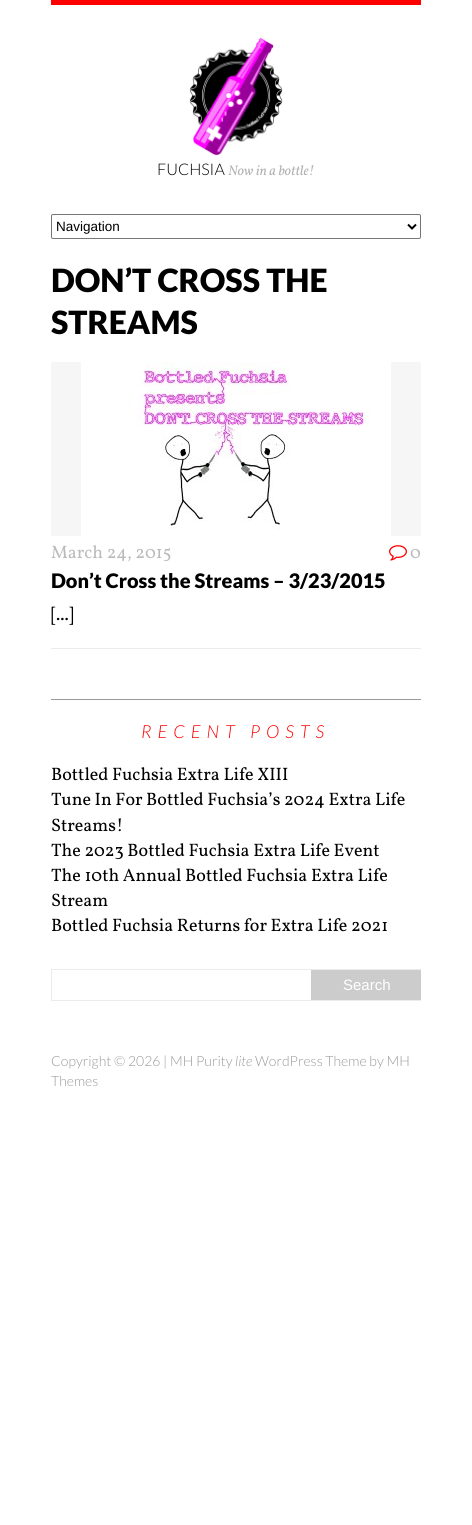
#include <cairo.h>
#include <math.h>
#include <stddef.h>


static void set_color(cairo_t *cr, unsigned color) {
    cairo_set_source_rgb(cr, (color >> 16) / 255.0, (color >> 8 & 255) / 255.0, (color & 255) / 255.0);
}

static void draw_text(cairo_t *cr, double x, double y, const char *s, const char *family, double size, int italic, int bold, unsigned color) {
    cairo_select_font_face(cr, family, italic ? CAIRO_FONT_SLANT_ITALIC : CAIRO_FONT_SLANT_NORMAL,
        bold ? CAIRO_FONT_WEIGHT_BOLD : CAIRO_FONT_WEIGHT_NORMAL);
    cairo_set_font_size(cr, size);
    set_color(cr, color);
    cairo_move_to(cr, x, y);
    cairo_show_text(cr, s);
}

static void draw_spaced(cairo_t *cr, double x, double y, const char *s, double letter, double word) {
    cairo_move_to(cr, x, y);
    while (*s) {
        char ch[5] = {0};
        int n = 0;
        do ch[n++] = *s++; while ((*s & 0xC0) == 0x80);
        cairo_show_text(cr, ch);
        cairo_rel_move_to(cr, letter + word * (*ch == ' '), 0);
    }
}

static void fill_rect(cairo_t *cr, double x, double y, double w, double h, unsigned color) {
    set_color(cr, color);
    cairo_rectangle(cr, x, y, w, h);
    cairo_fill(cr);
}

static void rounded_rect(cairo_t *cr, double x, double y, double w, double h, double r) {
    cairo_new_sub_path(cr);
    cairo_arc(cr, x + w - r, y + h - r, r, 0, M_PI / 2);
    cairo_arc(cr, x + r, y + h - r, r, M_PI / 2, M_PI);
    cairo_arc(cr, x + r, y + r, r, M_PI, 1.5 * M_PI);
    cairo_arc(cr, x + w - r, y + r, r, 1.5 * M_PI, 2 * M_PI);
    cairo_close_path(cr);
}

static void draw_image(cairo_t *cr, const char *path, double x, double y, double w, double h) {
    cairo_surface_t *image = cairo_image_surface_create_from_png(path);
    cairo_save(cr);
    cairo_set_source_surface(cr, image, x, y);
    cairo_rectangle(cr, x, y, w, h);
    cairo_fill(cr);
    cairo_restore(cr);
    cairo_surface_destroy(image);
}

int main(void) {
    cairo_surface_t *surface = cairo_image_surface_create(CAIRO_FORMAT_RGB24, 472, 1525);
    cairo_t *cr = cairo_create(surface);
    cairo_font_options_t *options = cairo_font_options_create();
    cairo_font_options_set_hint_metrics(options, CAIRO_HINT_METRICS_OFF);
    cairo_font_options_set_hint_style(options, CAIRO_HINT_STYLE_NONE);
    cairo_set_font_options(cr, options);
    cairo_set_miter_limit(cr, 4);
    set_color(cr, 0xFFFFFF);
    cairo_paint(cr);
    fill_rect(cr, 51, 0, 370, 5, 0xFF0000);
    draw_image(cr, "assets/img1.png", 189, 37, 94, 119);
    draw_text(cr, 157, 175, "FUCHSIA", "Lato Light", 16, 0, 0, 0x000000);
    draw_text(cr, 228, 175, "Now in a bottle!", "Vollkorn", 14, 1, 0, 0xB3B3B3);
    rounded_rect(cr, 51.5, 214.5, 369, 24, 1.5);
    set_color(cr, 0x767676);
    cairo_set_line_width(cr, 1);
    cairo_stroke(cr);
    cairo_new_path(cr);
    cairo_move_to(cr, 408, 224.5);
    cairo_line_to(cr, 412, 228.5);
    cairo_line_to(cr, 416, 224.5);
    set_color(cr, 0x000000);
    cairo_set_line_width(cr, 2);
    cairo_stroke(cr);
    draw_text(cr, 56, 231, "Navigation", "Liberation Sans", 13.5, 0, 0, 0x000000);
    draw_text(cr, 51, 292, "DON’T CROSS THE", "Lato Black", 32, 0, 0, 0x000000);
    draw_text(cr, 51, 334, "STREAMS", "Lato Black", 32, 0, 0, 0x000000);
    fill_rect(cr, 51, 648, 370, 1, 0xEBEBEB);
    fill_rect(cr, 51, 362, 370, 174, 0xF6F6F6);
    draw_image(cr, "assets/img2.png", 81, 362, 310, 174);
    draw_text(cr, 51, 558, "March 24, 2015", "Vollkorn", 18, 0, 0, 0xBBBBBB);
    draw_image(cr, "assets/img3.png", 389, 545, 18, 16);
    draw_text(cr, 410, 558, "0", "Vollkorn", 18, 0, 0, 0xBBBBBB);
    draw_text(cr, 51, 588, "Don’t Cross the Streams – 3/23/2015", "Lato Black", 20, 0, 0, 0x000000);
    draw_text(cr, 51, 620, "[...]", "Vollkorn", 18, 0, 0, 0x000000);
    fill_rect(cr, 51, 699, 370, 1, 0x999999);
    cairo_select_font_face(cr, "Lato Light", CAIRO_FONT_SLANT_ITALIC, CAIRO_FONT_WEIGHT_NORMAL);
    set_color(cr, 0xFF0000);
    draw_spaced(cr, 141, 738, "RECENT POSTS", 6, 0);
    draw_text(cr, 51, 780, "Bottled Fuchsia Extra Life XIII", "Vollkorn", 18, 0, 0, 0x000000);
    draw_text(cr, 51, 805, "Tune In For Bottled Fuchsia’s 2024 Extra Life", "Vollkorn", 18, 0, 0, 0x000000);
    draw_text(cr, 51, 831, "Streams!", "Vollkorn", 18, 0, 0, 0x000000);
    draw_text(cr, 51, 856, "The 2023 Bottled Fuchsia Extra Life Event", "Vollkorn", 18, 0, 0, 0x000000);
    draw_text(cr, 51, 881, "The 10th Annual Bottled Fuchsia Extra Life", "Vollkorn", 18, 0, 0, 0x000000);
    draw_text(cr, 51, 906, "Stream", "Vollkorn", 18, 0, 0, 0x000000);
    draw_text(cr, 51, 931, "Bottled Fuchsia Returns for Extra Life 2021", "Vollkorn", 18, 0, 0, 0x000000);
    cairo_save(cr);
    cairo_rectangle(cr, 51, 969, 370, 32);
    cairo_clip(cr);
    cairo_rectangle(cr, 51.5, 969.5, 371, 31);
    set_color(cr, 0xEBEBEB);
    cairo_set_line_width(cr, 1);
    cairo_stroke(cr);
    cairo_restore(cr);
    fill_rect(cr, 311, 970, 110, 30, 0xCCCCCC);
    draw_text(cr, 343, 990, "Search", "Liberation Sans", 15, 0, 0, 0xFFFFFF);
    draw_text(cr, 51, 1066, "Copyright © 2026 | MH Purity", "Lato Light", 14, 0, 0, 0x999999);
    draw_text(cr, 235, 1066, "lite", "Lato Light", 14, 1, 0, 0x999999);
    draw_text(cr, 255, 1066, "WordPress Theme by MH", "Lato Light", 14, 0, 0, 0x999999);
    draw_text(cr, 51, 1086, "Themes", "Lato Light", 14, 0, 0, 0x999999);
    cairo_surface_write_to_png(surface, "output.png");
    cairo_font_options_destroy(options);
    cairo_destroy(cr);
    cairo_surface_destroy(surface);
    return 0;
}
